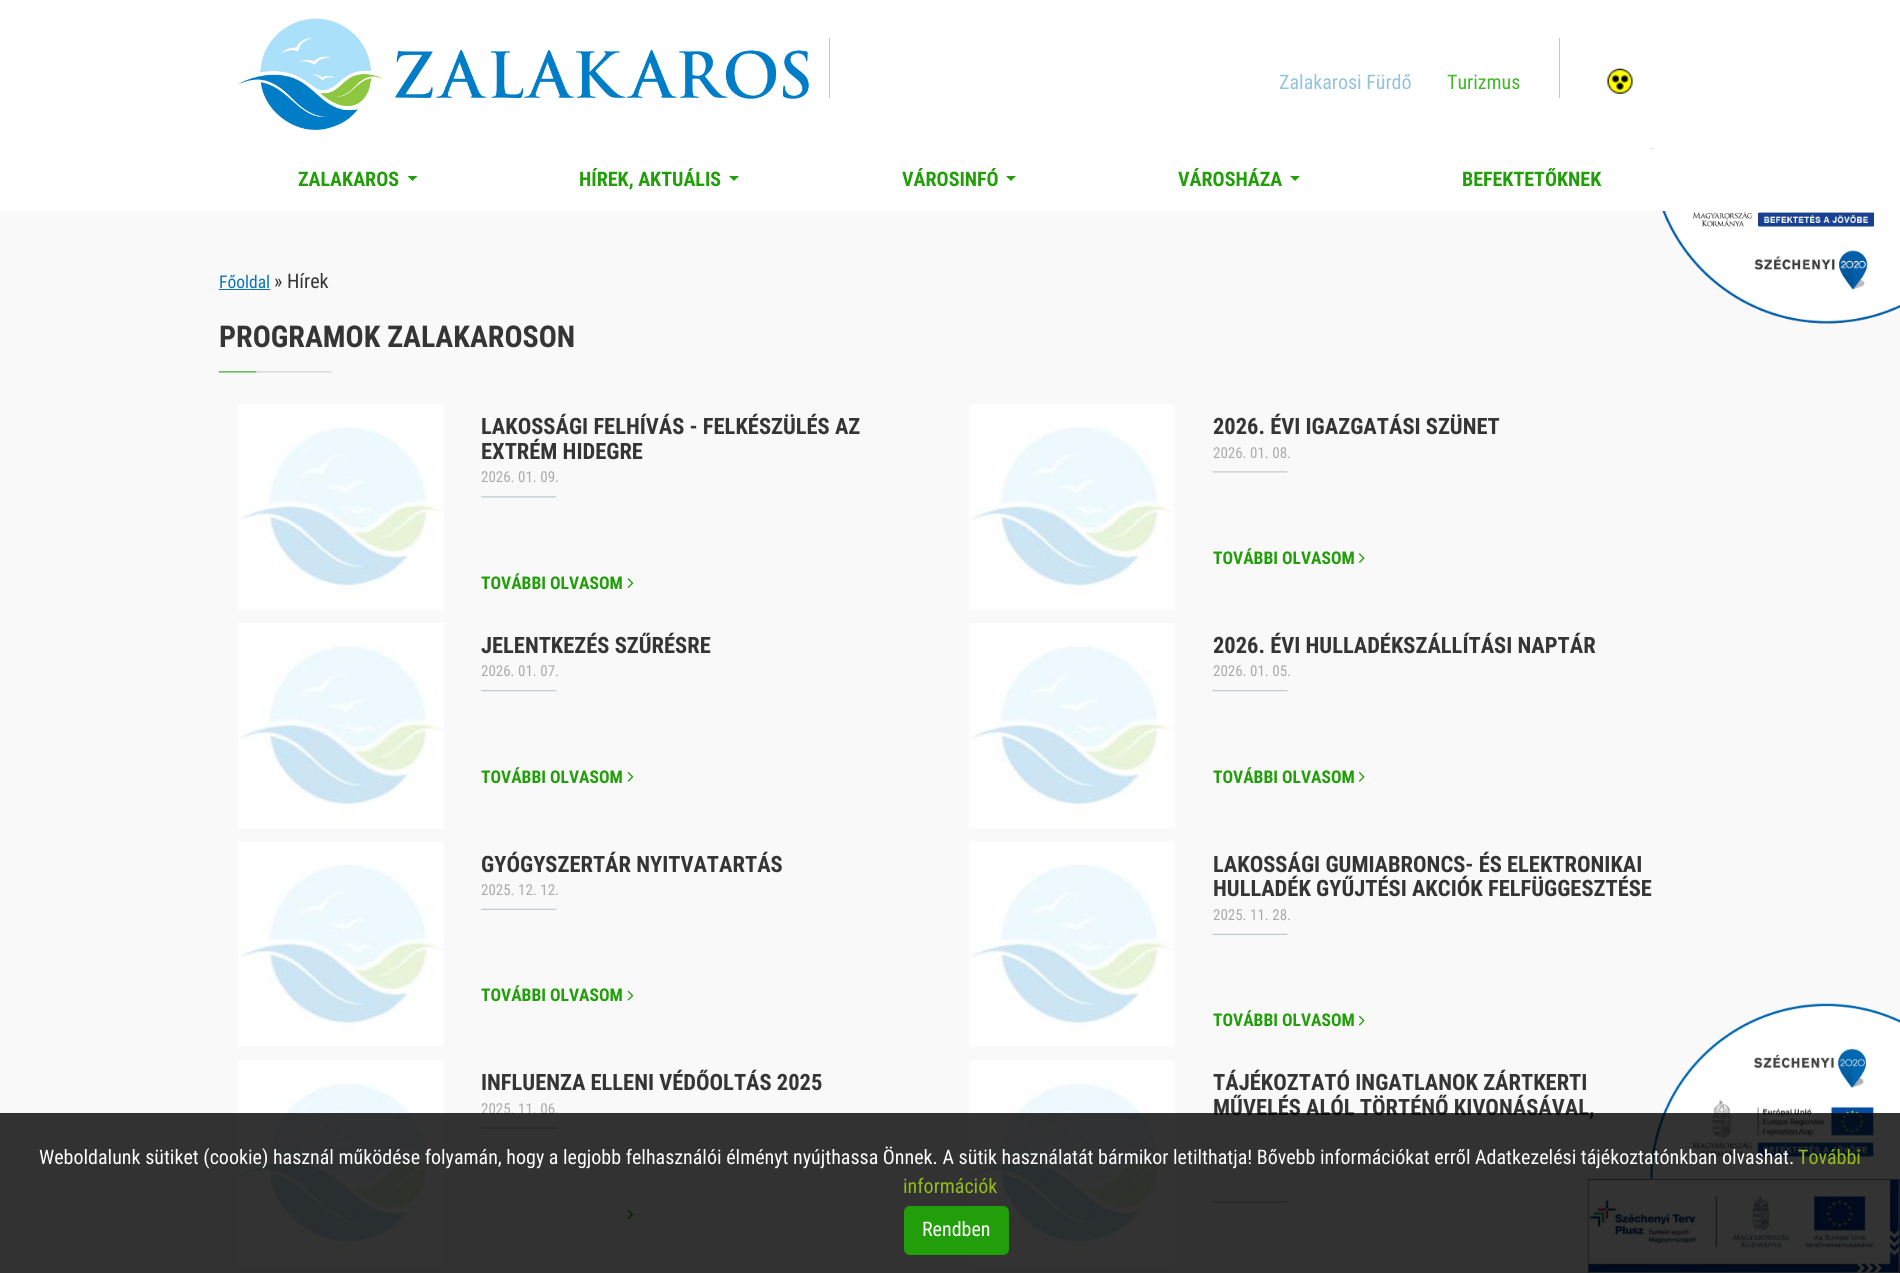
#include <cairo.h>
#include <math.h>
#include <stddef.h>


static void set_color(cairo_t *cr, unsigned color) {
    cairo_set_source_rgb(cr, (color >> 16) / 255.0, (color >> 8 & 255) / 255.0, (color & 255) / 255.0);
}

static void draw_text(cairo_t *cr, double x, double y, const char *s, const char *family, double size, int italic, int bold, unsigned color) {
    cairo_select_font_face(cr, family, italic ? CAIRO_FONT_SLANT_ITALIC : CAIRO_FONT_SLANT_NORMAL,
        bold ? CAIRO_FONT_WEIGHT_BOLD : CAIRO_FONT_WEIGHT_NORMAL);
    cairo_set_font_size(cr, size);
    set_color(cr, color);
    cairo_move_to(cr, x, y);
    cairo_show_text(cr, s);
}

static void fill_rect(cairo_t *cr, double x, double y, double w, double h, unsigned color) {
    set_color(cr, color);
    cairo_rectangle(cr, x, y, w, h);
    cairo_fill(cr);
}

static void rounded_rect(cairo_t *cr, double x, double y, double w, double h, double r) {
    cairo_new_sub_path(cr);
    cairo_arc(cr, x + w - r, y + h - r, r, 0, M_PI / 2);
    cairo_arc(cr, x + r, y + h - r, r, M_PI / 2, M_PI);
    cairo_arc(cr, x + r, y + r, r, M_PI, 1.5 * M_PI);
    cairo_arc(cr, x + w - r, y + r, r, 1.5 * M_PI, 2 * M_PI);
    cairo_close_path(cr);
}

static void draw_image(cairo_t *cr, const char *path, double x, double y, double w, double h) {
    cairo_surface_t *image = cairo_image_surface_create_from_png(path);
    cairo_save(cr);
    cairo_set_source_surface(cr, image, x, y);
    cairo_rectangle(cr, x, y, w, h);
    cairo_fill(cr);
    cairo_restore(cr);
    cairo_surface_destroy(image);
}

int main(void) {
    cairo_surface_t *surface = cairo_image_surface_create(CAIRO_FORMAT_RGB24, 1900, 1273);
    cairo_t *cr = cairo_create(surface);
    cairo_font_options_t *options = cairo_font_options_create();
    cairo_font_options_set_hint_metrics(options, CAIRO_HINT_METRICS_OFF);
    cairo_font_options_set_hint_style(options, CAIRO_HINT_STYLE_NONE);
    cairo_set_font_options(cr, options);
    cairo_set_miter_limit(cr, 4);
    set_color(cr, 0xF9F9F9);
    cairo_paint(cr);
    fill_rect(cr, 0, 0, 1900, 149, 0xFFFFFF);
    draw_image(cr, "assets/img1.png", 238, 18, 571, 112);
    fill_rect(cr, 1559, 38, 1, 60, 0xC1C9CE);
    fill_rect(cr, 829, 38, 1, 60, 0xC1C9CE);
    draw_text(cr, 1279, 89, "Zalakarosi Fürdő", "Roboto Condensed", 20, 0, 0, 0x93C3E1);
    draw_text(cr, 1447, 89, "Turizmus", "Roboto Condensed", 20, 0, 0, 0x42B62C);
    draw_image(cr, "assets/img2.png", 1607, 68, 26, 26);
    draw_image(cr, "assets/img3.png", 1650, 148, 250, 176);
    fill_rect(cr, 0, 149, 1875, 62, 0xFFFFFF);
    draw_text(cr, 298, 186, "ZALAKAROS", "Roboto Condensed", 20, 0, 1, 0x219E09);
    cairo_new_path(cr);
    cairo_move_to(cr, 407.5, 176);
    cairo_line_to(cr, 417.5, 176);
    cairo_line_to(cr, 412.5, 181);
    cairo_close_path(cr);
    cairo_fill(cr);
    draw_text(cr, 579, 186, "HÍREK, AKTUÁLIS", "Roboto Condensed", 20, 0, 1, 0x219E09);
    cairo_new_path(cr);
    cairo_move_to(cr, 729, 176);
    cairo_line_to(cr, 739, 176);
    cairo_line_to(cr, 734, 181);
    cairo_close_path(cr);
    cairo_fill(cr);
    draw_text(cr, 902, 186, "VÁROSINFÓ", "Roboto Condensed", 20, 0, 1, 0x219E09);
    cairo_new_path(cr);
    cairo_move_to(cr, 1006, 176);
    cairo_line_to(cr, 1016, 176);
    cairo_line_to(cr, 1011, 181);
    cairo_close_path(cr);
    cairo_fill(cr);
    draw_text(cr, 1178, 186, "VÁROSHÁZA", "Roboto Condensed", 20, 0, 1, 0x219E09);
    cairo_new_path(cr);
    cairo_move_to(cr, 1290, 176);
    cairo_line_to(cr, 1300, 176);
    cairo_line_to(cr, 1295, 181);
    cairo_close_path(cr);
    cairo_fill(cr);
    draw_text(cr, 1462, 186, "BEFEKTETŐKNEK", "Roboto Condensed", 20, 0, 1, 0x219E09);
    draw_text(cr, 219, 288, "Főoldal", "Roboto Condensed", 17.5, 0, 0, 0x0B75B3);
    fill_rect(cr, 219, 289, 51, 1, 0x0B75B3);
    draw_text(cr, 274, 288, "» Hírek", "Roboto Condensed", 20, 0, 0, 0x353535);
    draw_image(cr, "assets/img4.png", 218, 371, 114, 2);
    draw_text(cr, 219, 347, "PROGRAMOK ZALAKAROSON", "Roboto Condensed", 30, 0, 1, 0x353535);
    draw_image(cr, "assets/img5.png", 238, 404, 206, 206);
    draw_image(cr, "assets/img6.png", 481, 496, 76, 2);
    draw_text(cr, 481, 434, "LAKOSSÁGI FELHÍVÁS - FELKÉSZÜLÉS AZ", "Roboto Condensed", 22.5, 0, 1, 0x353535);
    draw_text(cr, 481, 459, "EXTRÉM HIDEGRE", "Roboto Condensed", 22.5, 0, 1, 0x353535);
    draw_text(cr, 481, 482, "2026. 01. 09.", "Roboto Condensed", 15, 0, 0, 0xAAAAAA);
    draw_text(cr, 481, 589, "TOVÁBBI OLVASOM", "Roboto Condensed", 17.5, 0, 1, 0x219E09);
    draw_image(cr, "assets/img7.png", 627, 578, 7, 10);
    draw_image(cr, "assets/img8.png", 969, 404, 206, 206);
    draw_image(cr, "assets/img9.png", 1212, 471, 76, 2);
    draw_text(cr, 1213, 434, "2026. ÉVI IGAZGATÁSI SZÜNET", "Roboto Condensed", 22.5, 0, 1, 0x353535);
    draw_text(cr, 1213, 458, "2026. 01. 08.", "Roboto Condensed", 15, 0, 0, 0xAAAAAA);
    draw_text(cr, 1213, 564, "TOVÁBBI OLVASOM", "Roboto Condensed", 17.5, 0, 1, 0x219E09);
    draw_image(cr, "assets/img10.png", 1358, 553, 7, 10);
    draw_image(cr, "assets/img11.png", 238, 623, 206, 206);
    draw_image(cr, "assets/img12.png", 481, 690, 76, 2);
    draw_text(cr, 481, 653, "JELENTKEZÉS SZŰRÉSRE", "Roboto Condensed", 22.5, 0, 1, 0x353535);
    draw_text(cr, 481, 676, "2026. 01. 07.", "Roboto Condensed", 15, 0, 0, 0xAAAAAA);
    draw_text(cr, 481, 783, "TOVÁBBI OLVASOM", "Roboto Condensed", 17.5, 0, 1, 0x219E09);
    draw_image(cr, "assets/img13.png", 627, 772, 7, 10);
    draw_image(cr, "assets/img14.png", 969, 623, 206, 206);
    draw_image(cr, "assets/img15.png", 1212, 690, 76, 2);
    draw_text(cr, 1213, 653, "2026. ÉVI HULLADÉKSZÁLLÍTÁSI NAPTÁR", "Roboto Condensed", 22.5, 0, 1, 0x353535);
    draw_text(cr, 1213, 676, "2026. 01. 05.", "Roboto Condensed", 15, 0, 0, 0xAAAAAA);
    draw_text(cr, 1213, 783, "TOVÁBBI OLVASOM", "Roboto Condensed", 17.5, 0, 1, 0x219E09);
    draw_image(cr, "assets/img16.png", 1358, 772, 7, 10);
    draw_image(cr, "assets/img17.png", 238, 841, 206, 206);
    draw_image(cr, "assets/img18.png", 481, 908, 76, 2);
    draw_text(cr, 481, 872, "GYÓGYSZERTÁR NYITVATARTÁS", "Roboto Condensed", 22.5, 0, 1, 0x353535);
    draw_text(cr, 481, 895, "2025. 12. 12.", "Roboto Condensed", 15, 0, 0, 0xAAAAAA);
    draw_text(cr, 481, 1001, "TOVÁBBI OLVASOM", "Roboto Condensed", 17.5, 0, 1, 0x219E09);
    draw_image(cr, "assets/img19.png", 627, 990, 7, 11);
    draw_image(cr, "assets/img20.png", 969, 841, 206, 206);
    draw_image(cr, "assets/img21.png", 1212, 933, 76, 2);
    draw_text(cr, 1213, 872, "LAKOSSÁGI GUMIABRONCS- ÉS ELEKTRONIKAI", "Roboto Condensed", 22.5, 0, 1, 0x353535);
    draw_text(cr, 1213, 896, "HULLADÉK GYŰJTÉSI AKCIÓK FELFÜGGESZTÉSE", "Roboto Condensed", 22.5, 0, 1, 0x353535);
    draw_text(cr, 1213, 920, "2025. 11. 28.", "Roboto Condensed", 15, 0, 0, 0xAAAAAA);
    draw_text(cr, 1213, 1026, "TOVÁBBI OLVASOM", "Roboto Condensed", 17.5, 0, 1, 0x219E09);
    draw_image(cr, "assets/img22.png", 1358, 1015, 7, 11);
    draw_image(cr, "assets/img23.png", 238, 1060, 206, 206);
    draw_image(cr, "assets/img24.png", 481, 1127, 76, 2);
    draw_text(cr, 481, 1090, "INFLUENZA ELLENI VÉDŐOLTÁS 2025", "Roboto Condensed", 22.5, 0, 1, 0x353535);
    draw_text(cr, 481, 1114, "2025. 11. 06.", "Roboto Condensed", 15, 0, 0, 0xAAAAAA);
    draw_image(cr, "assets/img25.png", 627, 1209, 7, 11);
    draw_image(cr, "assets/img26.png", 969, 1060, 206, 206);
    draw_image(cr, "assets/img9.png", 1212, 1201, 76, 2);
    draw_text(cr, 1213, 1090, "TÁJÉKOZTATÓ INGATLANOK ZÁRTKERTI", "Roboto Condensed", 22.5, 0, 1, 0x353535);
    draw_text(cr, 1213, 1115, "MŰVELÉS ALÓL TÖRTÉNŐ KIVONÁSÁVAL,", "Roboto Condensed", 22.5, 0, 1, 0x353535);
    draw_image(cr, "assets/img27.png", 1650, 1003, 250, 176);
    set_color(cr, 0xFFFFFF);
    cairo_rectangle(cr, 1588.5, 1179.5, 311, 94);
    cairo_fill_preserve(cr);
    set_color(cr, 0x808080);
    cairo_set_line_width(cr, 1);
    cairo_stroke(cr);
    draw_image(cr, "assets/img28.png", 1588, 1180, 311, 93);
    cairo_set_source_rgba(cr, 0, 0, 0, 0.8);
    cairo_rectangle(cr, 0, 1113, 1900, 160);
    cairo_fill(cr);
    draw_text(cr, 39, 1164, "Weboldalunk sütiket (cookie) használ működése folyamán, hogy a legjobb felhasználói élményt nyújthassa Önnek. A sütik használatát bármikor letilthatja! Bővebb információkat erről Adatkezelési tájékoztatónkban olvashat.", "Roboto Condensed", 20, 0, 0, 0xFFFFFF);
    draw_text(cr, 1798, 1164, "További", "Roboto Condensed", 20, 0, 0, 0x94BB1D);
    draw_text(cr, 903, 1193, "információk", "Roboto Condensed", 20, 0, 0, 0x94BB1D);
    set_color(cr, 0x219E09);
    rounded_rect(cr, 904, 1206, 105, 49, 6);
    cairo_fill(cr);
    draw_text(cr, 922, 1236, "Rendben", "Roboto Condensed", 20, 0, 0, 0xFFFFFF);
    cairo_surface_write_to_png(surface, "output.png");
    cairo_font_options_destroy(options);
    cairo_destroy(cr);
    cairo_surface_destroy(surface);
    return 0;
}
